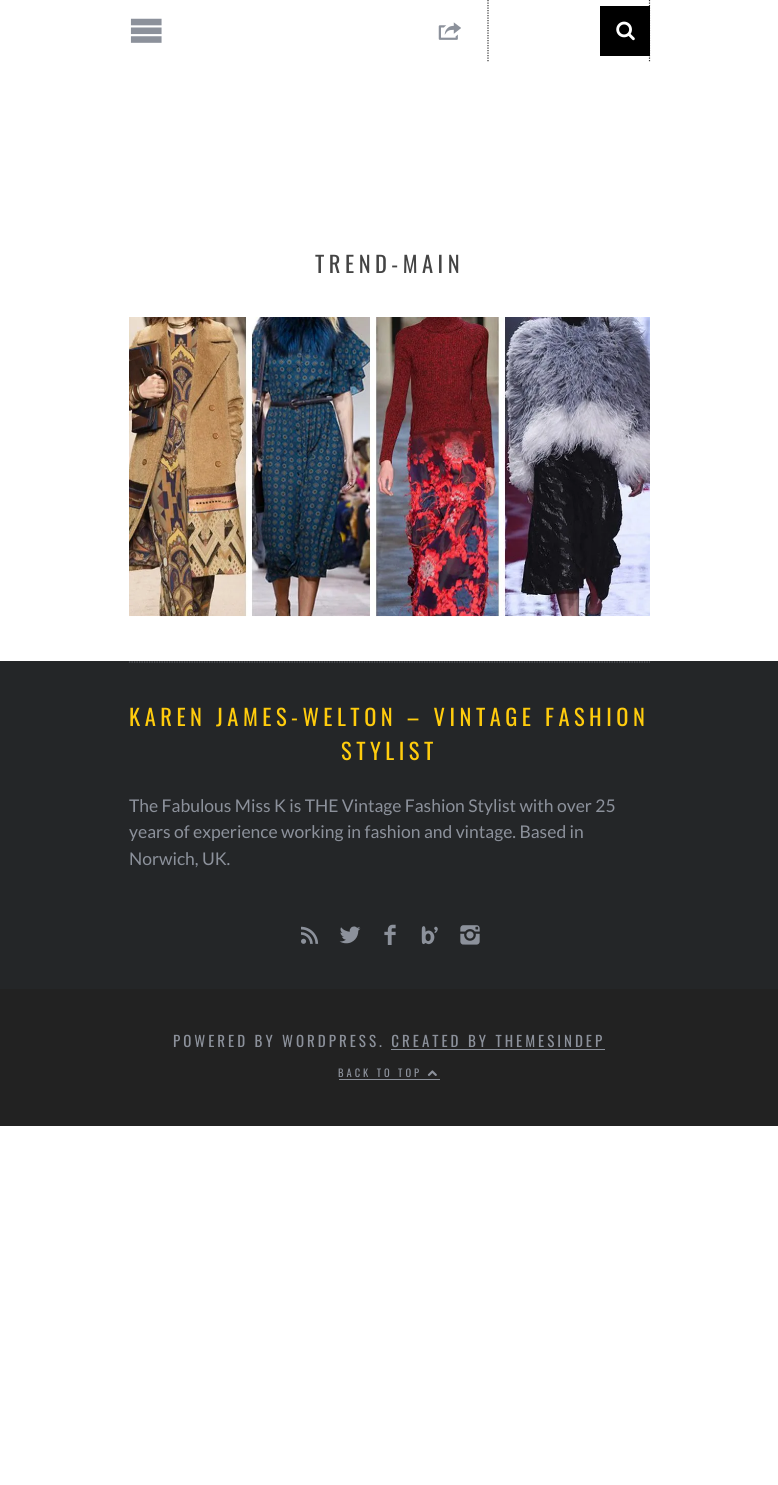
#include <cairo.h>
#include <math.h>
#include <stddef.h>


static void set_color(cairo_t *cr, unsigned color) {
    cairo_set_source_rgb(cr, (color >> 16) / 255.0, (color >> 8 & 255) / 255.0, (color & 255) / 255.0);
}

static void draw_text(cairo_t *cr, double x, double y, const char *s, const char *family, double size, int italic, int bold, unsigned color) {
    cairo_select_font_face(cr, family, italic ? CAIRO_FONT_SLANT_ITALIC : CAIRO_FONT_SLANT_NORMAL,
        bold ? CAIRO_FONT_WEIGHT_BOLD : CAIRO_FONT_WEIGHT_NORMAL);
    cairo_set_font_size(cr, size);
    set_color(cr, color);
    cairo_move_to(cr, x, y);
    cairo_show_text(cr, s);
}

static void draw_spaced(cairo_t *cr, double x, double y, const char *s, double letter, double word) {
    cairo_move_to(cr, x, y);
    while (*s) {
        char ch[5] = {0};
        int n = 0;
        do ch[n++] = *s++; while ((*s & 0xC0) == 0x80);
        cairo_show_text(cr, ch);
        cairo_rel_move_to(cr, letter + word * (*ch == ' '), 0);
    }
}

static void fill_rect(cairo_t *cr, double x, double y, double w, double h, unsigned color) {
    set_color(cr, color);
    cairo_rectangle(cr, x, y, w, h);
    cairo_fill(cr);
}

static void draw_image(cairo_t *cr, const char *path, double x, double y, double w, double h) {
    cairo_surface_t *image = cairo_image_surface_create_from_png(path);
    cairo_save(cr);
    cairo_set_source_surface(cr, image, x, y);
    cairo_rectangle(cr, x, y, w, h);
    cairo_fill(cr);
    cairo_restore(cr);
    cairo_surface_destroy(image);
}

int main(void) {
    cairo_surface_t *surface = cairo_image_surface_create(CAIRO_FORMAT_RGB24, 778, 1485);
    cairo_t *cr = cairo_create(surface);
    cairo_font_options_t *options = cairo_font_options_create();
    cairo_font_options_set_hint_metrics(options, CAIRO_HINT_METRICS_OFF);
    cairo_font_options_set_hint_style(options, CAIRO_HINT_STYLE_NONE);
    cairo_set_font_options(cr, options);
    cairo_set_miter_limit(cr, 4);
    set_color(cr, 0xFFFFFF);
    cairo_paint(cr);
    draw_image(cr, "assets/img1.png", 130, 18, 32, 25);
    draw_image(cr, "assets/img2.png", 438, 22, 23, 18);
    cairo_new_path(cr);
    cairo_move_to(cr, 649.5, 0);
    cairo_line_to(cr, 649.5, 62.5);
    set_color(cr, 0x333333);
    cairo_set_line_width(cr, 1.2);
    cairo_set_dash(cr, (double[]){1.25, 1.25}, 2, 0);
    cairo_stroke(cr);
    cairo_new_path(cr);
    cairo_move_to(cr, 488, 0);
    cairo_line_to(cr, 488, 62.5);
    cairo_stroke(cr);
    fill_rect(cr, 600, 6, 50, 50, 0x000000);
    draw_image(cr, "assets/img3.png", 616, 21, 19, 20);
    cairo_select_font_face(cr, "Oswald", CAIRO_FONT_SLANT_NORMAL, CAIRO_FONT_WEIGHT_NORMAL);
    cairo_set_font_size(cr, 22.5);
    set_color(cr, 0x444444);
    draw_spaced(cr, 315, 273, "TREND-MAIN", 4.5, 0);
    draw_image(cr, "assets/img4.png", 129, 317, 521, 300);
    fill_rect(cr, 0, 661, 778, 328, 0x242628);
    cairo_new_path(cr);
    cairo_move_to(cr, 129, 662);
    cairo_line_to(cr, 650, 662);
    set_color(cr, 0x585B61);
    cairo_stroke(cr);
    set_color(cr, 0xFFCC0D);
    draw_spaced(cr, 129, 726, "KAREN JAMES-WELTON – VINTAGE FASHION", 4.5, 0);
    draw_spaced(cr, 341, 760, "STYLIST", 4.5, 0);
    draw_text(cr, 129, 812, "The Fabulous Miss K is THE Vintage Fashion Stylist with over 25", "Lato", 17.5, 0, 0, 0x8C919B);
    draw_text(cr, 129, 838, "years of experience working in fashion and vintage. Based in", "Lato", 17.5, 0, 0, 0x8C919B);
    draw_text(cr, 129, 865, "Norwich, UK.", "Lato", 17.5, 0, 0, 0x8C919B);
    draw_image(cr, "assets/img5.png", 301, 926, 18, 18);
    draw_image(cr, "assets/img6.png", 339, 926, 22, 18);
    draw_image(cr, "assets/img7.png", 384, 924, 12, 21);
    draw_image(cr, "assets/img8.png", 421, 926, 17, 19);
    draw_image(cr, "assets/img9.png", 460, 925, 20, 20);
    fill_rect(cr, 0, 989, 778, 137, 0x222222);
    cairo_select_font_face(cr, "Oswald", CAIRO_FONT_SLANT_NORMAL, CAIRO_FONT_WEIGHT_NORMAL);
    cairo_set_font_size(cr, 15);
    set_color(cr, 0x8C919B);
    draw_spaced(cr, 173, 1047, "POWERED BY WORDPRESS. CREATED BY THEMESINDEP", 3, 0);
    fill_rect(cr, 391, 1049, 214, 1, 0x8C919B);
    cairo_set_font_size(cr, 10.5);
    draw_spaced(cr, 338, 1077, "BACK TO TOP", 3, 0);
    fill_rect(cr, 339, 1079, 101, 1, 0x8C919B);
    draw_image(cr, "assets/img10.png", 427, 1070, 10, 6);
    cairo_surface_write_to_png(surface, "output.png");
    cairo_font_options_destroy(options);
    cairo_destroy(cr);
    cairo_surface_destroy(surface);
    return 0;
}
